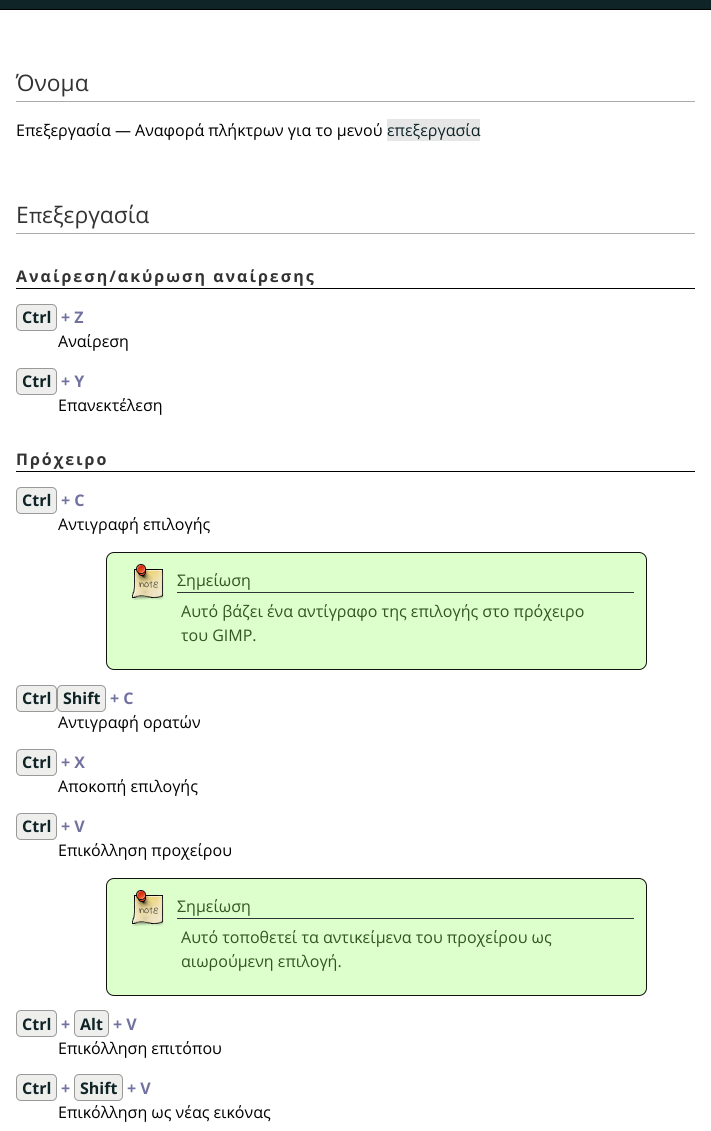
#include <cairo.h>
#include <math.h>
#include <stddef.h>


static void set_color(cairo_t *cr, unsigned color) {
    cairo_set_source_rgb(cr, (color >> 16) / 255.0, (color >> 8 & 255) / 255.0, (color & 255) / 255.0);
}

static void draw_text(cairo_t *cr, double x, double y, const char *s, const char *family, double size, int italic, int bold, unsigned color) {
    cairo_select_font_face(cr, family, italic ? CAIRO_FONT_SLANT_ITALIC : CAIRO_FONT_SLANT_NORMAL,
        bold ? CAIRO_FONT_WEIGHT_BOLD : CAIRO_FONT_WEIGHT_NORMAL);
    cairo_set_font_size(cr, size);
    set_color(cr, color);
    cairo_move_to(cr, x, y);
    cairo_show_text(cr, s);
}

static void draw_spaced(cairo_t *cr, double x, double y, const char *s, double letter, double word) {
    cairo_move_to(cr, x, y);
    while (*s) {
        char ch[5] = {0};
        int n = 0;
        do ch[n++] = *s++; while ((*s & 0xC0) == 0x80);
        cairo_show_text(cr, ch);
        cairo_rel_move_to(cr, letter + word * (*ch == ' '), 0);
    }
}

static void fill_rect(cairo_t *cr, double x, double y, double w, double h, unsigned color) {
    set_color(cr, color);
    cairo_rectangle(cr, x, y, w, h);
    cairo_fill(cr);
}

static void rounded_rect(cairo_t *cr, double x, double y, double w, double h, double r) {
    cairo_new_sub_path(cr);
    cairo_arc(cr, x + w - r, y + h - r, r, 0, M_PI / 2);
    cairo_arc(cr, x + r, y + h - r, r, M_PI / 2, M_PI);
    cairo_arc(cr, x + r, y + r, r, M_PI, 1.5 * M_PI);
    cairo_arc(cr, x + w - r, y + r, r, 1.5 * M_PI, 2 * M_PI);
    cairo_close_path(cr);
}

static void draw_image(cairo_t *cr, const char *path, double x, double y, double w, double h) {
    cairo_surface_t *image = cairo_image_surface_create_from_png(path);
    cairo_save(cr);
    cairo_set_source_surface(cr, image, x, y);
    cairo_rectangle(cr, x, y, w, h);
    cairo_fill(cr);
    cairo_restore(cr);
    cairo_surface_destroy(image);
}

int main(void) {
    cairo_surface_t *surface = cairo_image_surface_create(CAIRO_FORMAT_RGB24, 711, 1131);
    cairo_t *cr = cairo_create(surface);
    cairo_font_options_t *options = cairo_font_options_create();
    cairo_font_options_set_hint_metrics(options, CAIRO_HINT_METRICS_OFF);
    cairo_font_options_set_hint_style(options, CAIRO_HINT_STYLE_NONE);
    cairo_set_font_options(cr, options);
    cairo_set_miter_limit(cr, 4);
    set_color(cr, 0xFFFFFF);
    cairo_paint(cr);
    fill_rect(cr, 0, 0, 711, 9, 0x0E2426);
    fill_rect(cr, 0, 9, 711, 1, 0x000000);
    fill_rect(cr, 16, 101, 679, 1, 0xAAAAAA);
    draw_text(cr, 16, 91, "Όνομα", "Open Sans", 22.75, 0, 0, 0x333333);
    draw_text(cr, 16, 136, "Επεξεργασία — Αναφορά πλήκτρων για το μενού", "Open Sans", 16, 0, 0, 0x000000);
    fill_rect(cr, 387, 119, 93, 22, 0xE6E6E6);
    draw_text(cr, 387, 136, "επεξεργασία", "Open Sans", 16, 0, 0, 0x0E2426);
    fill_rect(cr, 16, 233, 679, 1, 0xAAAAAA);
    draw_text(cr, 16, 223, "Ε", "Open Sans", 22.75, 0, 0, 0x333333);
    draw_text(cr, 29, 223, "π", "Questrial", 22.75, 0, 0, 0x333333);
    draw_text(cr, 42, 223, "εξεργασία", "Open Sans", 22.75, 0, 0, 0x333333);
    fill_rect(cr, 16, 288, 679, 1, 0x000000);
    cairo_select_font_face(cr, "Open Sans", CAIRO_FONT_SLANT_NORMAL, CAIRO_FONT_WEIGHT_BOLD);
    cairo_set_font_size(cr, 16);
    set_color(cr, 0x333333);
    draw_spaced(cr, 16, 282, "Αναίρεση/ακύρωση αναίρεσης", 2, 0);
    set_color(cr, 0xEEEEEC);
    rounded_rect(cr, 16.5, 304.5, 40, 26, 4.5);
    cairo_fill_preserve(cr);
    set_color(cr, 0x999999);
    cairo_set_line_width(cr, 1);
    cairo_stroke(cr);
    draw_text(cr, 22, 323, "Ctrl", "Open Sans", 16, 0, 1, 0x0E2426);
    draw_text(cr, 61, 323, "+ Z", "Open Sans", 16, 0, 1, 0x7272A1);
    draw_text(cr, 58, 347, "Αναίρεση", "Open Sans", 16, 0, 0, 0x000000);
    set_color(cr, 0xEEEEEC);
    rounded_rect(cr, 16.5, 368.5, 40, 26, 4.5);
    cairo_fill_preserve(cr);
    set_color(cr, 0x999999);
    cairo_stroke(cr);
    draw_text(cr, 22, 387, "Ctrl", "Open Sans", 16, 0, 1, 0x0E2426);
    draw_text(cr, 61, 387, "+ Y", "Open Sans", 16, 0, 1, 0x7272A1);
    draw_text(cr, 58, 411, "Επανεκτέλεση", "Open Sans", 16, 0, 0, 0x000000);
    fill_rect(cr, 16, 471, 679, 1, 0x000000);
    cairo_select_font_face(cr, "Open Sans", CAIRO_FONT_SLANT_NORMAL, CAIRO_FONT_WEIGHT_BOLD);
    set_color(cr, 0x333333);
    draw_spaced(cr, 16, 465, "Πρόχειρο", 2, 0);
    set_color(cr, 0xEEEEEC);
    rounded_rect(cr, 16.5, 487.5, 40, 26, 4.5);
    cairo_fill_preserve(cr);
    set_color(cr, 0x999999);
    cairo_stroke(cr);
    draw_text(cr, 22, 506, "Ctrl", "Open Sans", 16, 0, 1, 0x0E2426);
    draw_text(cr, 61, 506, "+ C", "Open Sans", 16, 0, 1, 0x7272A1);
    draw_text(cr, 58, 530, "Αντιγραφή επιλογής", "Open Sans", 16, 0, 0, 0x000000);
    set_color(cr, 0xDDFFCC);
    rounded_rect(cr, 106.5, 552.5, 540, 117, 7.5);
    cairo_fill_preserve(cr);
    set_color(cr, 0x111111);
    cairo_stroke(cr);
    draw_image(cr, "assets/img1.png", 132, 564, 32, 36);
    fill_rect(cr, 177, 592, 457, 1, 0x2E3436);
    draw_text(cr, 177, 586, "Σημείωση", "Open Sans", 16, 0, 0, 0x335522);
    draw_text(cr, 181, 617, "Αυτό βάζει ένα αντίγραφο της επιλογής στο πρόχειρο", "Open Sans", 16, 0, 0, 0x335522);
    draw_text(cr, 181, 641, "του GIMP.", "Open Sans", 16, 0, 0, 0x335522);
    set_color(cr, 0xEEEEEC);
    rounded_rect(cr, 16.5, 685.5, 40, 26, 4.5);
    cairo_fill_preserve(cr);
    set_color(cr, 0x999999);
    cairo_stroke(cr);
    draw_text(cr, 22, 704, "Ctrl", "Open Sans", 16, 0, 1, 0x0E2426);
    set_color(cr, 0xEEEEEC);
    rounded_rect(cr, 57.5, 685.5, 48, 26, 4.5);
    cairo_fill_preserve(cr);
    set_color(cr, 0x999999);
    cairo_stroke(cr);
    draw_text(cr, 63, 704, "Shift", "Open Sans", 16, 0, 1, 0x0E2426);
    draw_text(cr, 110, 704, "+ C", "Open Sans", 16, 0, 1, 0x7272A1);
    draw_text(cr, 58, 728, "Αντιγραφή ορατών", "Open Sans", 16, 0, 0, 0x000000);
    set_color(cr, 0xEEEEEC);
    rounded_rect(cr, 16.5, 749.5, 40, 26, 4.5);
    cairo_fill_preserve(cr);
    set_color(cr, 0x999999);
    cairo_stroke(cr);
    draw_text(cr, 22, 768, "Ctrl", "Open Sans", 16, 0, 1, 0x0E2426);
    draw_text(cr, 61, 768, "+ X", "Open Sans", 16, 0, 1, 0x7272A1);
    draw_text(cr, 58, 792, "Αποκοπή επιλογής", "Open Sans", 16, 0, 0, 0x000000);
    set_color(cr, 0xEEEEEC);
    rounded_rect(cr, 16.5, 813.5, 40, 26, 4.5);
    cairo_fill_preserve(cr);
    set_color(cr, 0x999999);
    cairo_stroke(cr);
    draw_text(cr, 22, 832, "Ctrl", "Open Sans", 16, 0, 1, 0x0E2426);
    draw_text(cr, 61, 832, "+ V", "Open Sans", 16, 0, 1, 0x7272A1);
    draw_text(cr, 58, 856, "Επικόλληση προχείρου", "Open Sans", 16, 0, 0, 0x000000);
    set_color(cr, 0xDDFFCC);
    rounded_rect(cr, 106.5, 878.5, 540, 117, 7.5);
    cairo_fill_preserve(cr);
    set_color(cr, 0x111111);
    cairo_stroke(cr);
    draw_image(cr, "assets/img1.png", 132, 890, 32, 36);
    fill_rect(cr, 177, 918, 457, 1, 0x2E3436);
    draw_text(cr, 177, 912, "Σημείωση", "Open Sans", 16, 0, 0, 0x335522);
    draw_text(cr, 181, 943, "Αυτό τοποθετεί τα αντικείμενα του προχείρου ως", "Open Sans", 16, 0, 0, 0x335522);
    draw_text(cr, 181, 967, "αιωρούμενη επιλογή.", "Open Sans", 16, 0, 0, 0x335522);
    set_color(cr, 0xEEEEEC);
    rounded_rect(cr, 16.5, 1010.5, 40, 26, 4.5);
    cairo_fill_preserve(cr);
    set_color(cr, 0x999999);
    cairo_stroke(cr);
    draw_text(cr, 22, 1030, "Ctrl", "Open Sans", 16, 0, 1, 0x0E2426);
    draw_text(cr, 61, 1030, "+", "Open Sans", 16, 0, 1, 0x7272A1);
    set_color(cr, 0xEEEEEC);
    rounded_rect(cr, 74.5, 1010.5, 34, 26, 4.5);
    cairo_fill_preserve(cr);
    set_color(cr, 0x999999);
    cairo_stroke(cr);
    draw_text(cr, 80, 1030, "Alt", "Open Sans", 16, 0, 1, 0x0E2426);
    draw_text(cr, 113, 1030, "+ V", "Open Sans", 16, 0, 1, 0x7272A1);
    draw_text(cr, 58, 1054, "Επικόλληση επιτόπου", "Open Sans", 16, 0, 0, 0x000000);
    set_color(cr, 0xEEEEEC);
    rounded_rect(cr, 16.5, 1074.5, 40, 26, 4.5);
    cairo_fill_preserve(cr);
    set_color(cr, 0x999999);
    cairo_stroke(cr);
    draw_text(cr, 22, 1094, "Ctrl", "Open Sans", 16, 0, 1, 0x0E2426);
    draw_text(cr, 61, 1094, "+", "Open Sans", 16, 0, 1, 0x7272A1);
    set_color(cr, 0xEEEEEC);
    rounded_rect(cr, 74.5, 1074.5, 48, 26, 4.5);
    cairo_fill_preserve(cr);
    set_color(cr, 0x999999);
    cairo_stroke(cr);
    draw_text(cr, 80, 1094, "Shift", "Open Sans", 16, 0, 1, 0x0E2426);
    draw_text(cr, 127, 1094, "+ V", "Open Sans", 16, 0, 1, 0x7272A1);
    draw_text(cr, 58, 1118, "Επικόλληση ως νέας εικόνας", "Open Sans", 16, 0, 0, 0x000000);
    cairo_surface_write_to_png(surface, "output.png");
    cairo_font_options_destroy(options);
    cairo_destroy(cr);
    cairo_surface_destroy(surface);
    return 0;
}
